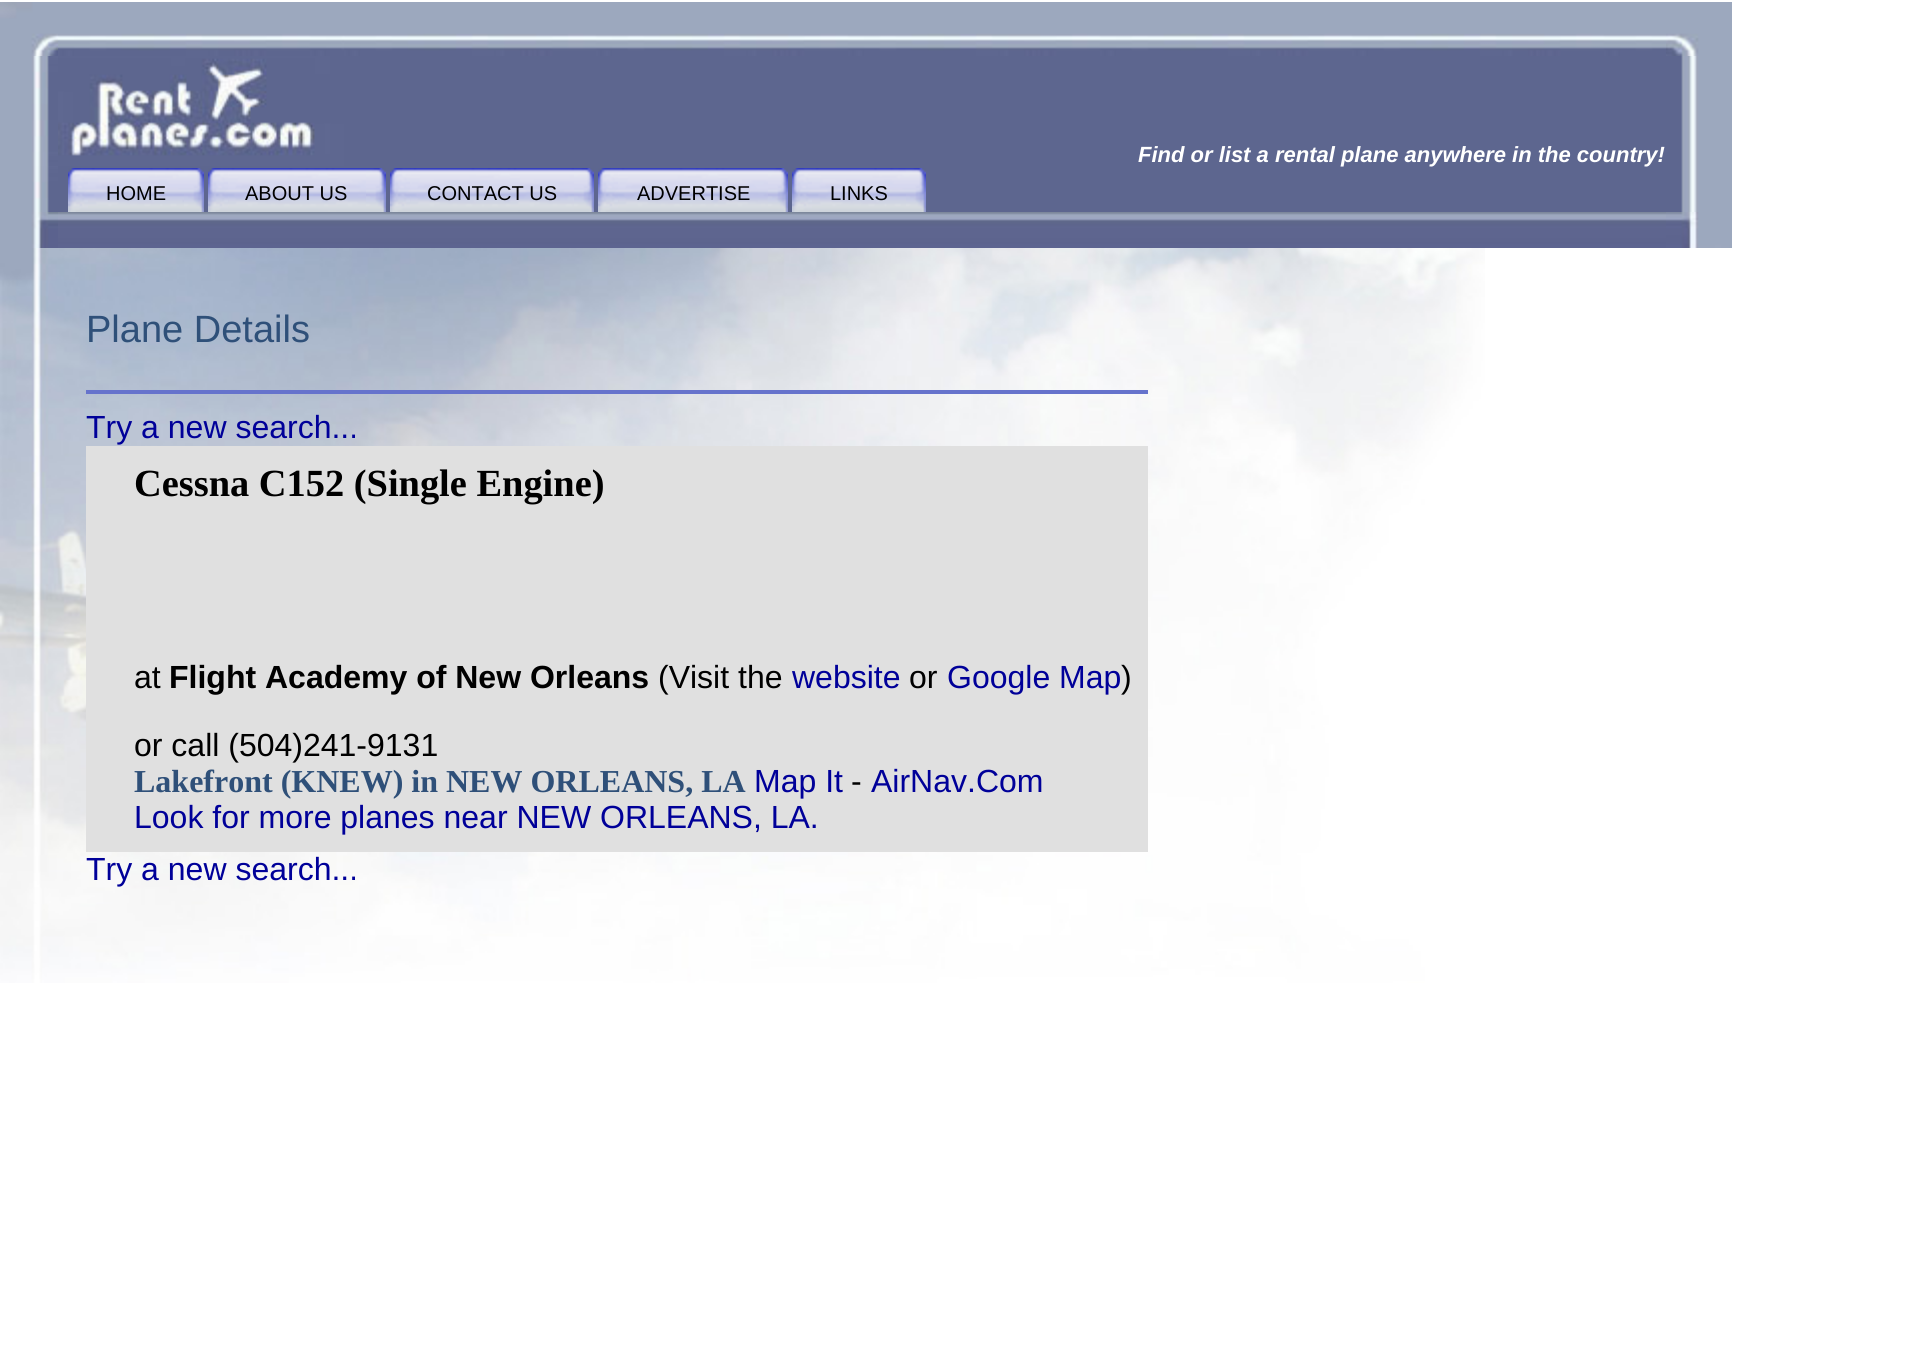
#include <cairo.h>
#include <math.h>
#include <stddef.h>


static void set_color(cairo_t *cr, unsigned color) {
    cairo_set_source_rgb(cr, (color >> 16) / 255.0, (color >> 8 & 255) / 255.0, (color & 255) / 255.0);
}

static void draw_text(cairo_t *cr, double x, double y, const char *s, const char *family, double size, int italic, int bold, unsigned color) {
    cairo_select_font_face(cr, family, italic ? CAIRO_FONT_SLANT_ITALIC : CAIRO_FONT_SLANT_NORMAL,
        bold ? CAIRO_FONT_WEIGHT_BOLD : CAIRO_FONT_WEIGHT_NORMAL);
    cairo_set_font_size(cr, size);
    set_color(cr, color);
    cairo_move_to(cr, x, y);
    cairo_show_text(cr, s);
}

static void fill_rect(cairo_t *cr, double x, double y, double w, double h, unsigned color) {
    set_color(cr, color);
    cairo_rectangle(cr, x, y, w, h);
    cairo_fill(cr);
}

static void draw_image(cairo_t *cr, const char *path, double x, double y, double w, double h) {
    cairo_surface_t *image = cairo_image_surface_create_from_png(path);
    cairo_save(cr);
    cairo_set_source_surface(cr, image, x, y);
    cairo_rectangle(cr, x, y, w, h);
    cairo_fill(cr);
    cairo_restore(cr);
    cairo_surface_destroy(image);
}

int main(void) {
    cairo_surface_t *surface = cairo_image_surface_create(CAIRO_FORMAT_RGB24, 1926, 1369);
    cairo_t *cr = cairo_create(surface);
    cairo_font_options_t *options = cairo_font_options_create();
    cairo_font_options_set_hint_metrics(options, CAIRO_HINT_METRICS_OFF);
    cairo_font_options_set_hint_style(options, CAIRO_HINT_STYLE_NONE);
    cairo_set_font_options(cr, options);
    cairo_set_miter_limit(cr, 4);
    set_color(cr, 0xFFFFFF);
    cairo_paint(cr);
    draw_image(cr, "assets/img1.png", 0, 2, 58, 54);
    draw_image(cr, "assets/img2.png", 58, 2, 286, 54);
    draw_image(cr, "assets/img3.png", 344, 2, 1322, 54);
    draw_image(cr, "assets/img4.png", 1666, 2, 66, 54);
    draw_image(cr, "assets/img5.png", 0, 56, 58, 110);
    draw_image(cr, "assets/img6.png", 58, 56, 286, 110);
    fill_rect(cr, 344, 56, 1322, 110, 0x5D668F);
    fill_rect(cr, 58, 166, 1608, 46, 0x5D668F);
    draw_text(cr, 1138, 162, "Find or list a rental plane anywhere in the country!", "Liberation Sans", 22, 1, 1, 0xFFFFFF);
    draw_image(cr, "assets/img7.png", 1666, 56, 66, 110);
    draw_image(cr, "assets/img8.png", 0, 166, 58, 46);
    draw_image(cr, "assets/img9.png", 68, 168, 20, 44);
    draw_image(cr, "assets/img10.png", 88, 168, 96, 44);
    draw_text(cr, 106, 200, "HOME", "Liberation Sans", 20, 0, 0, 0x000000);
    draw_image(cr, "assets/img11.png", 184, 168, 20, 44);
    draw_image(cr, "assets/img9.png", 208, 168, 20, 44);
    draw_image(cr, "assets/img12.png", 228, 168, 138, 44);
    draw_text(cr, 245, 200, "ABOUT US", "Liberation Sans", 20, 0, 0, 0x000000);
    draw_image(cr, "assets/img11.png", 366, 168, 20, 44);
    draw_image(cr, "assets/img9.png", 390, 168, 20, 44);
    draw_image(cr, "assets/img13.png", 410, 168, 164, 44);
    draw_text(cr, 427, 200, "CONTACT US", "Liberation Sans", 20, 0, 0, 0x000000);
    draw_image(cr, "assets/img11.png", 574, 168, 20, 44);
    draw_image(cr, "assets/img9.png", 598, 168, 20, 44);
    draw_image(cr, "assets/img14.png", 618, 168, 150, 44);
    draw_text(cr, 637, 200, "ADVERTISE", "Liberation Sans", 20, 0, 0, 0x000000);
    draw_image(cr, "assets/img11.png", 768, 168, 20, 44);
    draw_image(cr, "assets/img9.png", 792, 168, 20, 44);
    draw_image(cr, "assets/img15.png", 812, 168, 94, 44);
    draw_text(cr, 830, 200, "LINKS", "Liberation Sans", 20, 0, 0, 0x000000);
    draw_image(cr, "assets/img11.png", 906, 168, 20, 44);
    draw_image(cr, "assets/img16.png", 1666, 166, 66, 46);
    draw_image(cr, "assets/img17.png", 0, 212, 58, 36);
    draw_image(cr, "assets/img18.png", 58, 212, 1608, 36);
    draw_image(cr, "assets/img19.png", 1666, 212, 66, 36);
    draw_image(cr, "assets/img20.png", 0, 248, 1485, 735);
    draw_text(cr, 86, 342, "Plane Details", "Liberation Sans", 38, 0, 0, 0x2F5079);
    fill_rect(cr, 86, 390, 1062, 4, 0x6673CC);
    draw_text(cr, 86, 438, "Try a new search...", "Liberation Sans", 32, 0, 0, 0x000099);
    fill_rect(cr, 86, 446, 1062, 406, 0xE0E0E0);
    draw_text(cr, 134, 496, "Cessna C152 (Single Engine)", "Liberation Serif", 38.4, 0, 1, 0x000000);
    draw_text(cr, 134, 688, "at", "Liberation Sans", 32, 0, 0, 0x000000);
    draw_text(cr, 169, 688, "Flight Academy of New Orleans", "Liberation Sans", 32, 0, 1, 0x000000);
    draw_text(cr, 658, 688, "(Visit the", "Liberation Sans", 32, 0, 0, 0x000000);
    draw_text(cr, 792, 688, "website", "Liberation Sans", 32, 0, 0, 0x000099);
    draw_text(cr, 909, 688, "or", "Liberation Sans", 32, 0, 0, 0x000000);
    draw_text(cr, 947, 688, "Google Map", "Liberation Sans", 32, 0, 0, 0x000099);
    draw_text(cr, 1121, 688, ")", "Liberation Sans", 32, 0, 0, 0x000000);
    draw_text(cr, 134, 756, "or call (504)241-9131", "Liberation Sans", 32, 0, 0, 0x000000);
    draw_text(cr, 134, 792, "Lakefront (KNEW) in NEW ORLEANS, LA", "Liberation Serif", 32, 0, 1, 0x2F5079);
    draw_text(cr, 754, 792, "Map It", "Liberation Sans", 32, 0, 0, 0x000099);
    draw_text(cr, 851, 792, "-", "Liberation Sans", 32, 0, 0, 0x000000);
    draw_text(cr, 871, 792, "AirNav.Com", "Liberation Sans", 32, 0, 0, 0x000099);
    draw_text(cr, 134, 828, "Look for more planes near NEW ORLEANS, LA.", "Liberation Sans", 32, 0, 0, 0x000099);
    draw_text(cr, 86, 880, "Try a new search...", "Liberation Sans", 32, 0, 0, 0x000099);
    cairo_surface_write_to_png(surface, "output.png");
    cairo_font_options_destroy(options);
    cairo_destroy(cr);
    cairo_surface_destroy(surface);
    return 0;
}
